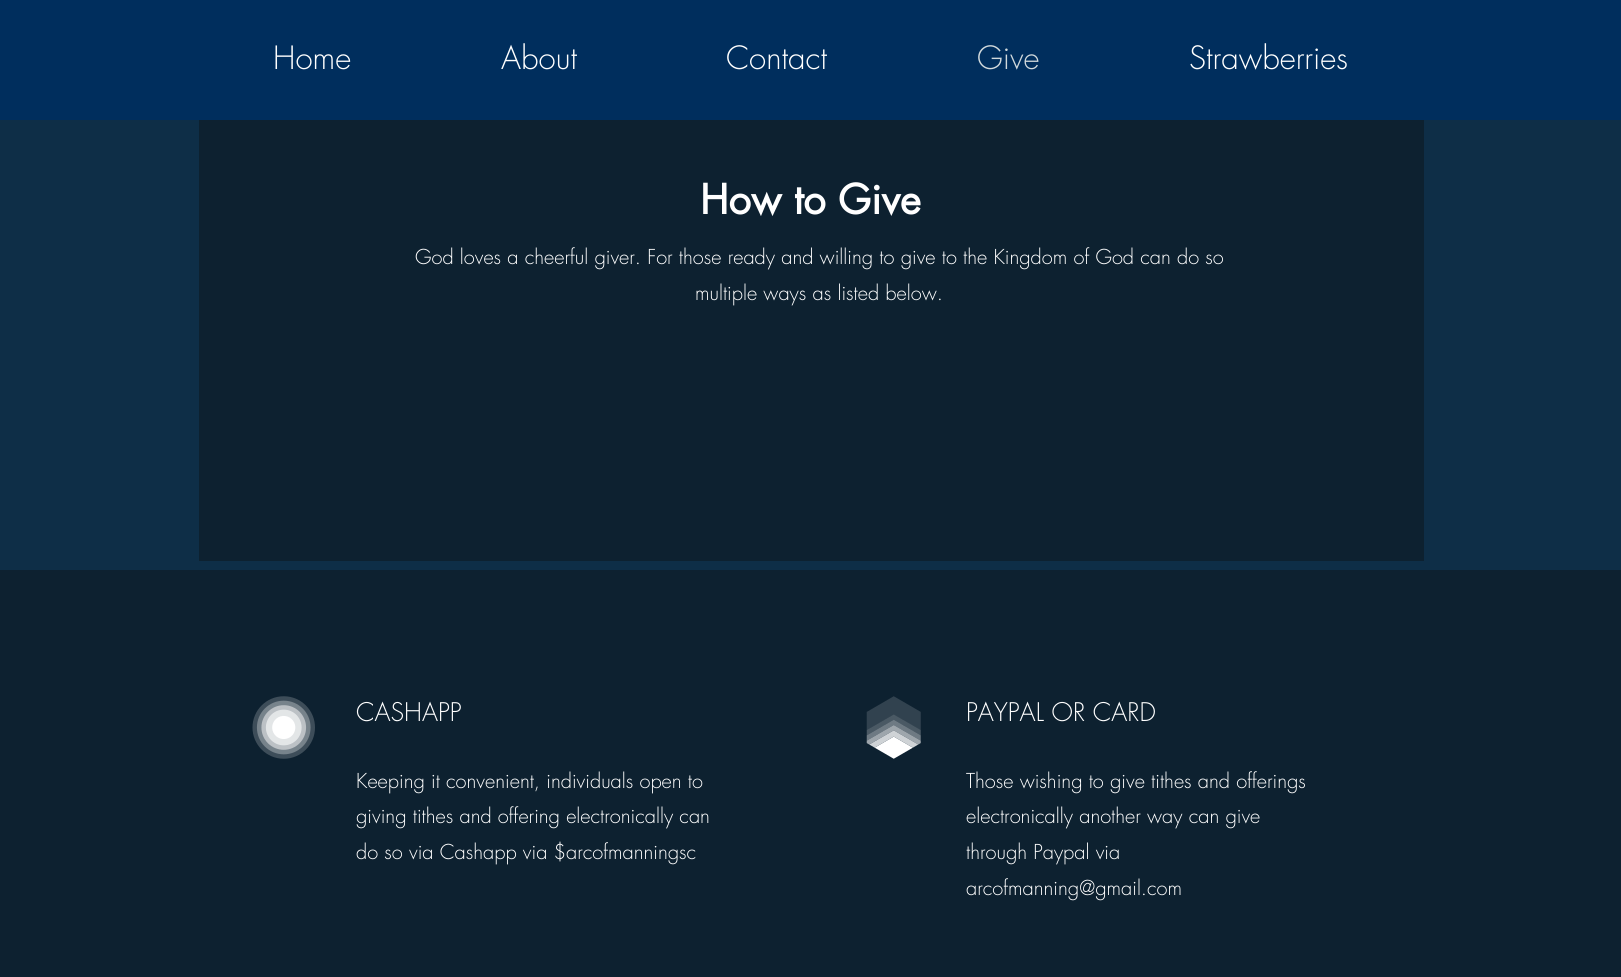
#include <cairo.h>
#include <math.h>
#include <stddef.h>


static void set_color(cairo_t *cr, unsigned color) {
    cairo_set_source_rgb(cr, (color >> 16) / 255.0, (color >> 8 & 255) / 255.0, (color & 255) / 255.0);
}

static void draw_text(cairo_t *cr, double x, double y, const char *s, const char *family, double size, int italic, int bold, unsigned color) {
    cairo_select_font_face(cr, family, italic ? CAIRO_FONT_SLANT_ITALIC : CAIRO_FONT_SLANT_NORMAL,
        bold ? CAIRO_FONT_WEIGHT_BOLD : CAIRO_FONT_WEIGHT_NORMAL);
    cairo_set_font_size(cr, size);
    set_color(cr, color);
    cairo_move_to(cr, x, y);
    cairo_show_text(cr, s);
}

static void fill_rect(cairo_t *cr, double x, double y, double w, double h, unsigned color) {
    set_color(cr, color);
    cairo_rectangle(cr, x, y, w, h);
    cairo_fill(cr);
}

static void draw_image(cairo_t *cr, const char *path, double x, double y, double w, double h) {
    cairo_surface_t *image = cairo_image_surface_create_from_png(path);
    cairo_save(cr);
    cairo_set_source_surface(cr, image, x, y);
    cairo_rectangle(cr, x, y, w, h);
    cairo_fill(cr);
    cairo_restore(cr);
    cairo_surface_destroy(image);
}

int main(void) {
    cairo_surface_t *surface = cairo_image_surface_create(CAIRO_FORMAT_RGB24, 1621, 977);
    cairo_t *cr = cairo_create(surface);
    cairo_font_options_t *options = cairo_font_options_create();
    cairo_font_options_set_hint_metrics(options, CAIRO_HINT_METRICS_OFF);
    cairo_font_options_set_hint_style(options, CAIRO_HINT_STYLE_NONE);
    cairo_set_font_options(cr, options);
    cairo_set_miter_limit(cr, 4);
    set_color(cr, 0x0D2130);
    cairo_paint(cr);
    fill_rect(cr, 0, 0, 1621, 120, 0x002E5D);
    draw_text(cr, 273, 69, "Home", "futura Light", 31.25, 0, 0, 0xFFFFFF);
    draw_text(cr, 501, 69, "About", "futura Light", 31.25, 0, 0, 0xFFFFFF);
    draw_text(cr, 726, 69, "Contact", "futura Light", 31.25, 0, 0, 0xFFFFFF);
    draw_text(cr, 977, 69, "Give", "futura Light", 31.25, 0, 0, 0xD1D9DC);
    draw_text(cr, 1189, 69, "Strawberries", "futura Light", 31.25, 0, 0, 0xFFFFFF);
    fill_rect(cr, 0, 120, 1621, 450, 0x0E2E47);
    fill_rect(cr, 199, 120, 1225, 441, 0x0D2130);
    draw_text(cr, 700, 214, "How to Give", "futura", 40, 0, 1, 0xFFFFFF);
    draw_text(cr, 415, 264, "God loves a cheerful giver. For those ready and willing to give to the Kingdom of God can do so", "futura Light", 20, 0, 0, 0xFFFFFF);
    draw_text(cr, 695, 300, "multiple ways as listed below.", "futura Light", 20, 0, 0, 0xFFFFFF);
    draw_image(cr, "assets/img1.png", 252, 696, 63, 63);
    draw_text(cr, 356, 721, "CASHAPP", "futura Light", 25, 0, 0, 0xFFFFFF);
    draw_text(cr, 356, 788, "Keeping it convenient, individuals open to", "futura Light", 20, 0, 0, 0xFFFFFF);
    draw_text(cr, 356, 823, "giving tithes and offering electronically can", "futura Light", 20, 0, 0, 0xFFFFFF);
    draw_text(cr, 356, 859, "do so via Cashapp via $arcofmanningsc", "futura Light", 20, 0, 0, 0xFFFFFF);
    draw_image(cr, "assets/img2.png", 866, 696, 55, 63);
    draw_text(cr, 966, 721, "PAYPAL OR CARD", "futura Light", 25, 0, 0, 0xFFFFFF);
    draw_text(cr, 966, 788, "Those wishing to give tithes and offerings", "futura Light", 20, 0, 0, 0xFFFFFF);
    draw_text(cr, 966, 823, "electronically another way can give", "futura Light", 20, 0, 0, 0xFFFFFF);
    draw_text(cr, 966, 859, "through Paypal via", "futura Light", 20, 0, 0, 0xFFFFFF);
    draw_text(cr, 966, 895, "arcofmanning@gmail.com", "futura Light", 20, 0, 0, 0xFFFFFF);
    cairo_surface_write_to_png(surface, "output.png");
    cairo_font_options_destroy(options);
    cairo_destroy(cr);
    cairo_surface_destroy(surface);
    return 0;
}
